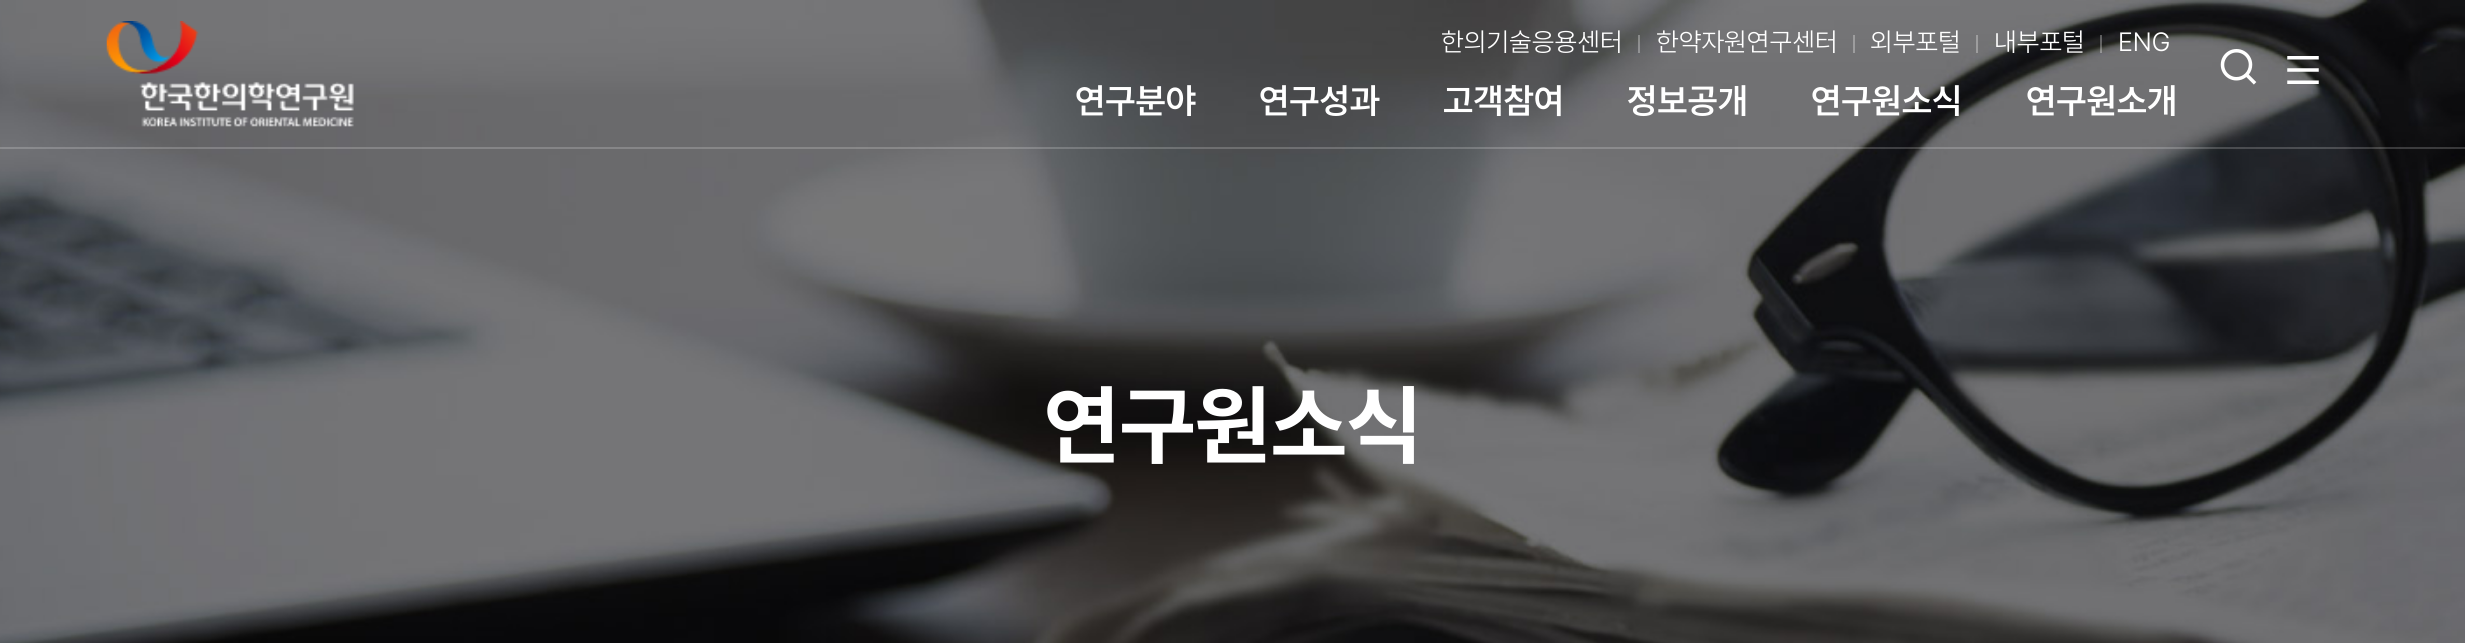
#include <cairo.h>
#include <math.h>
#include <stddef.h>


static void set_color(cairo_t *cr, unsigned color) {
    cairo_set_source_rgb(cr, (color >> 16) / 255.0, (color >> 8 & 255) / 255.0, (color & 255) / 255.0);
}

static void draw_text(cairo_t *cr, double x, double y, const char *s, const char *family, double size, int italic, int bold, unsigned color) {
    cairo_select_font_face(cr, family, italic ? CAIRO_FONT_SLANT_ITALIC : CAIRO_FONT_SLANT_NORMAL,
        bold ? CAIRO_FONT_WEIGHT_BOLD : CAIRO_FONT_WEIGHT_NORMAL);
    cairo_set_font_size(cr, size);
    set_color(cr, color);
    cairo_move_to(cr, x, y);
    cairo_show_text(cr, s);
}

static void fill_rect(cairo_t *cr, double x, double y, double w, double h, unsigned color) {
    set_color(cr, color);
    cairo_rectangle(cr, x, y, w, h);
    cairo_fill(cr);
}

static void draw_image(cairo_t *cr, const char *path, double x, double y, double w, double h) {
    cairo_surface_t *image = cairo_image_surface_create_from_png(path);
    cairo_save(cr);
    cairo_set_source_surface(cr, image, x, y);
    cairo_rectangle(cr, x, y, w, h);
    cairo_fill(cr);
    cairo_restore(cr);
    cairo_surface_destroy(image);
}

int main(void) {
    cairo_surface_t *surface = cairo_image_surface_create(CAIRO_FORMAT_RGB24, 2465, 643);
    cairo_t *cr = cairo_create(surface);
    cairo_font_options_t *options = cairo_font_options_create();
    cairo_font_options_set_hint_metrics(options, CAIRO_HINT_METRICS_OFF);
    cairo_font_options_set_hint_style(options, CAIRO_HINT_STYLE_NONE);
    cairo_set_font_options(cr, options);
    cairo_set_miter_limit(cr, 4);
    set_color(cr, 0xFFFFFF);
    cairo_paint(cr);
    draw_image(cr, "assets/img4.png", 0, 0, 2465, 643);
    cairo_set_source_rgba(cr, 1, 1, 1, 0.19);
    cairo_rectangle(cr, 0, 147, 2465, 2);
    cairo_fill(cr);
    draw_image(cr, "assets/img1.png", 106, 21, 248, 106);
    draw_text(cr, 1441, 51, "한의기술응용센터", "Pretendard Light", 26.25, 0, 0, 0xFFFFFF);
    cairo_set_source_rgba(cr, 1, 1, 1, 0.3);
    cairo_rectangle(cr, 1638, 35, 2, 18);
    cairo_fill(cr);
    draw_text(cr, 1656, 51, "한약자원연구센터", "Pretendard Light", 26.25, 0, 0, 0xFFFFFF);
    fill_rect(cr, 1853, 35, 2, 18, 0x9D9D9E);
    draw_text(cr, 1870, 51, "외부포털", "Pretendard Light", 26.25, 0, 0, 0xFFFFFF);
    fill_rect(cr, 1976, 35, 2, 18, 0x9D9D9E);
    draw_text(cr, 1994, 51, "내부포털", "Pretendard Light", 26.25, 0, 0, 0xFFFFFF);
    cairo_set_source_rgba(cr, 1, 1, 1, 0.3);
    cairo_rectangle(cr, 2100, 35, 2, 18);
    cairo_fill(cr);
    draw_text(cr, 2118, 51, "ENG", "Pretendard Light", 26.25, 0, 0, 0xFFFFFF);
    draw_image(cr, "assets/img2.png", 2220, 49, 37, 36);
    draw_image(cr, "assets/img3.png", 2287, 56, 32, 28);
    draw_text(cr, 1075, 113, "연구분야", "Pretendard SemiBold", 35, 0, 0, 0xFFFFFF);
    draw_text(cr, 1259, 113, "연구성과", "Pretendard SemiBold", 35, 0, 0, 0xFFFFFF);
    draw_text(cr, 1443, 113, "고객참여", "Pretendard SemiBold", 35, 0, 0, 0xFFFFFF);
    draw_text(cr, 1627, 113, "정보공개", "Pretendard SemiBold", 35, 0, 0, 0xFFFFFF);
    draw_text(cr, 1811, 113, "연구원소식", "Pretendard SemiBold", 35, 0, 0, 0xFFFFFF);
    draw_text(cr, 2026, 113, "연구원소개", "Pretendard SemiBold", 35, 0, 0, 0xFFFFFF);
    draw_text(cr, 1044, 456, "연구원소식", "Pretendard", 87.5, 0, 1, 0xFFFFFF);
    cairo_surface_write_to_png(surface, "output.png");
    cairo_font_options_destroy(options);
    cairo_destroy(cr);
    cairo_surface_destroy(surface);
    return 0;
}
